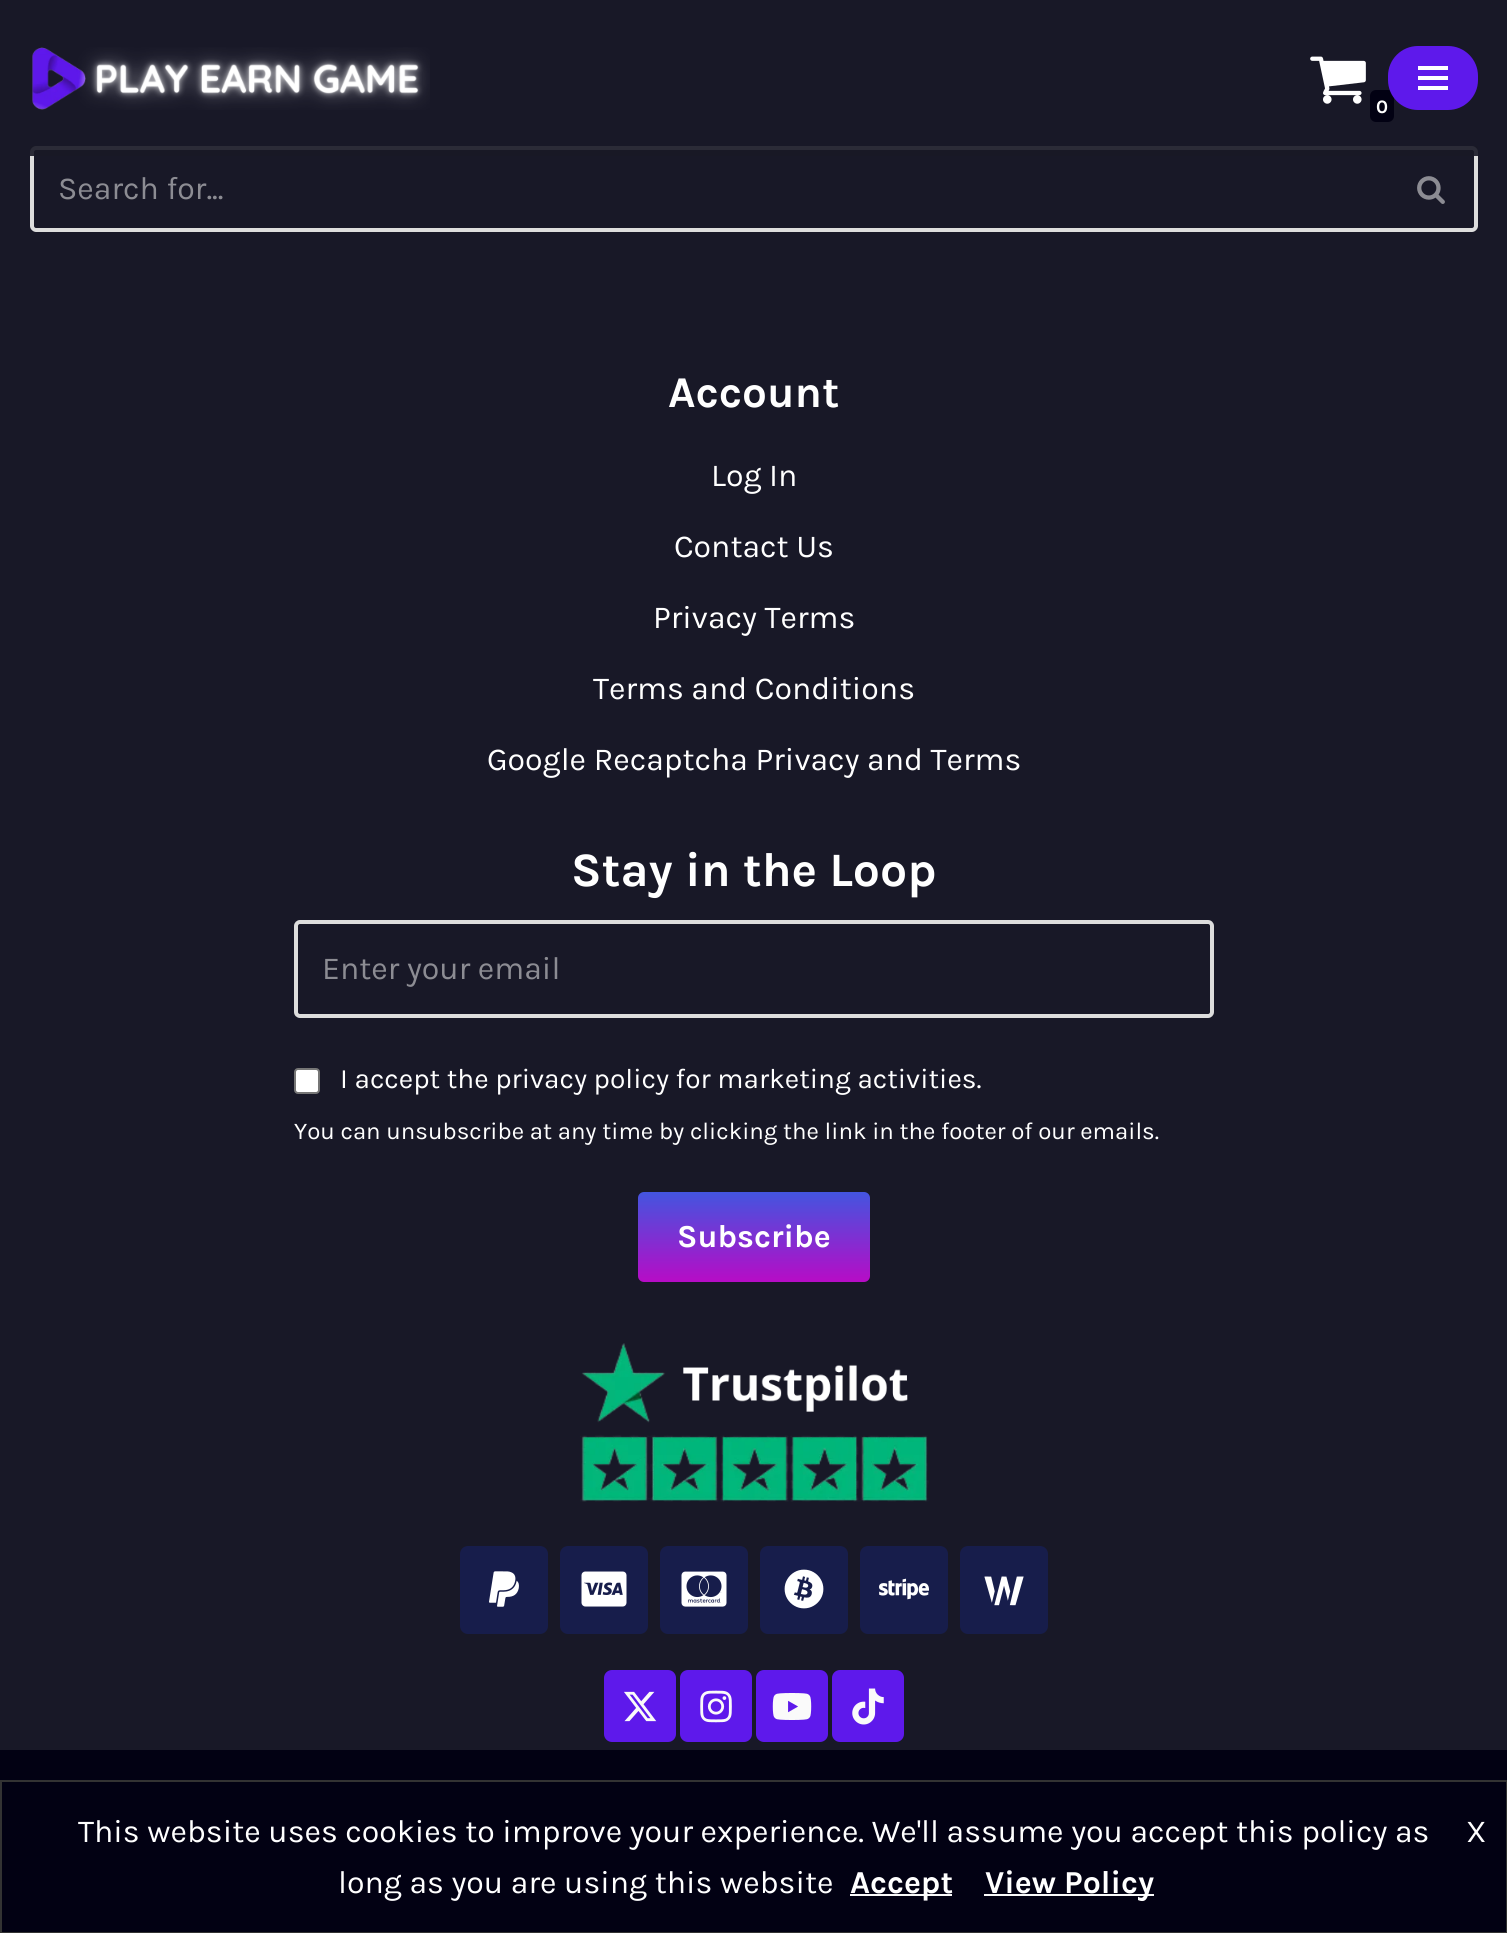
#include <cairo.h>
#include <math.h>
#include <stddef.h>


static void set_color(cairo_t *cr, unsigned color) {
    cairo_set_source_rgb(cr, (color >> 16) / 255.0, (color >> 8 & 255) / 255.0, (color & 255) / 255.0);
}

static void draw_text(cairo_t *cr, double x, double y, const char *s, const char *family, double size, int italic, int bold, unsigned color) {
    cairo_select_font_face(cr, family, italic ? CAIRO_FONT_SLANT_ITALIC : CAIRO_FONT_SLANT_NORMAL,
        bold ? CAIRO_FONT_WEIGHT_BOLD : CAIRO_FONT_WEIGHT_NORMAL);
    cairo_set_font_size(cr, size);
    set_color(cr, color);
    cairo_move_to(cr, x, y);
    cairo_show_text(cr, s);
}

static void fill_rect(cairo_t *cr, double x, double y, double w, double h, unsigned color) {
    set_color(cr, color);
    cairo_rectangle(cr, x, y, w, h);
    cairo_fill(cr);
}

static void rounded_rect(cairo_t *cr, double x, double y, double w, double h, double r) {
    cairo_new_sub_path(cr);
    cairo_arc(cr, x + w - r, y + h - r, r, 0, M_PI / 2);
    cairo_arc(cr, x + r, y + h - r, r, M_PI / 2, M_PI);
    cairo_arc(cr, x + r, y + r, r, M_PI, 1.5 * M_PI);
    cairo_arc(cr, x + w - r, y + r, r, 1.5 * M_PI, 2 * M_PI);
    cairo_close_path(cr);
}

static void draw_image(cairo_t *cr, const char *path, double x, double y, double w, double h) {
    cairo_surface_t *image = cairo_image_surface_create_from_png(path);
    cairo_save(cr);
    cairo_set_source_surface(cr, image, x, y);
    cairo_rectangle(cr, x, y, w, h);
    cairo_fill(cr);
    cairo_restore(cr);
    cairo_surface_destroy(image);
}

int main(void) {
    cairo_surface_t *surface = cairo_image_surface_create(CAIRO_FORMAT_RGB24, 1507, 1933);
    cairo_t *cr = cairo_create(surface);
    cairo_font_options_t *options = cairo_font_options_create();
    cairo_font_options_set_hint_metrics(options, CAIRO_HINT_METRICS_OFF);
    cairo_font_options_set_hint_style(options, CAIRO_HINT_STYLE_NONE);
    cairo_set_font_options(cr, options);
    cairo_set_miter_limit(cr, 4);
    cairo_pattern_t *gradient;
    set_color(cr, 0x181827);
    cairo_paint(cr);
    set_color(cr, 0xDDDDDD);
    cairo_set_fill_rule(cr, CAIRO_FILL_RULE_EVEN_ODD);
    cairo_new_path(cr);
    cairo_move_to(cr, 36, 146);
    cairo_line_to(cr, 1388, 146);
    cairo_line_to(cr, 1388, 232);
    cairo_line_to(cr, 36, 232);
    cairo_curve_to(cr, 33, 232, 30, 229, 30, 226);
    cairo_line_to(cr, 30, 152);
    cairo_curve_to(cr, 30, 149, 33, 146, 36, 146);
    cairo_close_path(cr);
    cairo_move_to(cr, 36, 150);
    cairo_line_to(cr, 1388, 150);
    cairo_line_to(cr, 1388, 228);
    cairo_line_to(cr, 36, 228);
    cairo_curve_to(cr, 35, 228, 34, 227, 34, 226);
    cairo_line_to(cr, 34, 152);
    cairo_curve_to(cr, 34, 151, 35, 150, 36, 150);
    cairo_close_path(cr);
    cairo_fill(cr);
    cairo_new_path(cr);
    cairo_move_to(cr, 1388, 146);
    cairo_line_to(cr, 1472, 146);
    cairo_curve_to(cr, 1475, 146, 1478, 149, 1478, 152);
    cairo_line_to(cr, 1478, 226);
    cairo_curve_to(cr, 1478, 229, 1475, 232, 1472, 232);
    cairo_line_to(cr, 1388, 232);
    cairo_close_path(cr);
    cairo_move_to(cr, 1388, 150);
    cairo_line_to(cr, 1472, 150);
    cairo_curve_to(cr, 1473, 150, 1474, 151, 1474, 152);
    cairo_line_to(cr, 1474, 226);
    cairo_curve_to(cr, 1474, 227, 1473, 228, 1472, 228);
    cairo_line_to(cr, 1388, 228);
    cairo_close_path(cr);
    cairo_fill(cr);
    cairo_set_source_rgba(cr, 0.094, 0.094, 0.149, 0.68);
    cairo_rectangle(cr, 30, 146, 1448, 10);
    cairo_fill(cr);
    cairo_rectangle(cr, 30, 146, 1448, 10);
    cairo_fill(cr);
    draw_image(cr, "assets/img1.png", 32, 47, 398, 63);
    draw_image(cr, "assets/img2.png", 1310, 56, 56, 48);
    set_color(cr, 0x020113);
    rounded_rect(cr, 1370, 90, 24, 32, 6);
    cairo_fill(cr);
    draw_text(cr, 1376, 113, "0", "Karla", 19, 0, 1, 0xFFFFFF);
    set_color(cr, 0x5E19EB);
    rounded_rect(cr, 1388, 46, 90, 64, 30);
    cairo_fill(cr);
    fill_rect(cr, 1418, 66, 30, 4, 0xFFFFFF);
    fill_rect(cr, 1418, 76, 30, 4, 0xFFFFFF);
    fill_rect(cr, 1418, 86, 30, 4, 0xFFFFFF);
    draw_text(cr, 58, 199, "Search for...", "Karla", 32, 0, 0, 0x8C8C93);
    draw_image(cr, "assets/img3.png", 1417, 176, 28, 28);
    draw_text(cr, 668, 407, "Account", "Karla", 44, 0, 1, 0xFFFFFF);
    draw_text(cr, 711, 486, "Log In", "Karla", 32, 0, 0, 0xFFFFFF);
    draw_text(cr, 674, 557, "Contact Us", "Karla", 32, 0, 0, 0xFFFFFF);
    draw_text(cr, 653, 628, "Privacy Terms", "Karla", 32, 0, 0, 0xFFFFFF);
    draw_text(cr, 593, 699, "Terms and Conditions", "Karla", 32, 0, 0, 0xFFFFFF);
    draw_text(cr, 487, 770, "Google Recaptcha Privacy and Terms", "Karla", 32, 0, 0, 0xFFFFFF);
    draw_text(cr, 571, 886, "Stay in the Loop", "Karla", 48, 0, 1, 0xFFFFFF);
    rounded_rect(cr, 296, 922, 916, 94, 4);
    set_color(cr, 0xDDDDDD);
    cairo_set_line_width(cr, 4);
    cairo_stroke(cr);
    draw_text(cr, 322, 979, "Enter your email", "Karla", 32, 0, 0, 0x8C8C93);
    set_color(cr, 0xFFFFFF);
    rounded_rect(cr, 295, 1069, 24, 24, 3);
    cairo_fill_preserve(cr);
    set_color(cr, 0x767676);
    cairo_set_line_width(cr, 2);
    cairo_stroke(cr);
    draw_text(cr, 340, 1088, "I accept the privacy policy for marketing activities.", "Karla", 28, 0, 0, 0xFFFFFF);
    draw_text(cr, 294, 1139, "You can unsubscribe at any time by clicking the link in the footer of our emails.", "Karla", 24, 0, 0, 0xFFFFFF);
    gradient = cairo_pattern_create_linear(754, 1192, 754, 1282);
    cairo_pattern_add_color_stop_rgba(gradient, 0, 0.263, 0.333, 0.875, 1);
    cairo_pattern_add_color_stop_rgba(gradient, 1, 0.718, 0.047, 0.776, 1);
    cairo_set_source(cr, gradient);
    cairo_pattern_destroy(gradient);
    rounded_rect(cr, 638, 1192, 232, 90, 6);
    cairo_fill(cr);
    draw_text(cr, 677, 1247, "Subscribe", "Karla", 32, 0, 1, 0xFFFFFF);
    draw_image(cr, "assets/img4.png", 580, 1343, 349, 159);
    set_color(cr, 0x171D4B);
    rounded_rect(cr, 460, 1546, 88, 88, 8);
    cairo_fill(cr);
    draw_image(cr, "assets/img5.png", 489, 1571, 30, 36);
    rounded_rect(cr, 560, 1546, 88, 88, 8);
    cairo_fill(cr);
    draw_image(cr, "assets/img6.png", 581, 1571, 46, 36);
    rounded_rect(cr, 660, 1546, 88, 88, 8);
    cairo_fill(cr);
    draw_image(cr, "assets/img7.png", 681, 1571, 46, 36);
    rounded_rect(cr, 760, 1546, 88, 88, 8);
    cairo_fill(cr);
    draw_image(cr, "assets/img8.png", 784, 1569, 40, 40);
    rounded_rect(cr, 860, 1546, 88, 88, 8);
    cairo_fill(cr);
    draw_image(cr, "assets/img9.png", 879, 1578, 50, 22);
    rounded_rect(cr, 960, 1546, 88, 88, 8);
    cairo_fill(cr);
    draw_image(cr, "assets/img10.png", 984, 1576, 40, 30);
    set_color(cr, 0x5E19EB);
    rounded_rect(cr, 604, 1670, 72, 72, 8);
    cairo_fill(cr);
    draw_image(cr, "assets/img11.png", 624, 1691, 33, 31);
    rounded_rect(cr, 680, 1670, 72, 72, 8);
    cairo_fill(cr);
    draw_image(cr, "assets/img12.png", 700, 1690, 32, 33);
    rounded_rect(cr, 756, 1670, 72, 72, 8);
    cairo_fill(cr);
    draw_image(cr, "assets/img13.png", 772, 1693, 40, 27);
    rounded_rect(cr, 832, 1670, 72, 72, 8);
    cairo_fill(cr);
    draw_image(cr, "assets/img14.png", 852, 1688, 32, 37);
    fill_rect(cr, 0, 1750, 1507, 30, 0x020113);
    cairo_rectangle(cr, 1, 1781, 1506, 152);
    cairo_fill_preserve(cr);
    set_color(cr, 0x333333);
    cairo_stroke(cr);
    draw_text(cr, 78, 1842, "This website uses cookies to improve your experience. We'll assume you accept this policy as", "Karla", 32, 0, 0, 0xFFFFFF);
    draw_text(cr, 1466, 1842, "X", "Karla", 32, 0, 0, 0xFFFFFF);
    draw_text(cr, 338, 1893, "long as you are using this website", "Karla", 32, 0, 0, 0xFFFFFF);
    fill_rect(cr, 850, 1894, 102, 2, 0xFAFAFA);
    draw_text(cr, 850, 1893, "Accept", "Karla", 32, 0, 1, 0xFFFFFF);
    fill_rect(cr, 984, 1894, 170, 2, 0xFAFAFA);
    draw_text(cr, 985, 1893, "View Policy", "Karla", 32, 0, 1, 0xFFFFFF);
    cairo_surface_write_to_png(surface, "output.png");
    cairo_font_options_destroy(options);
    cairo_destroy(cr);
    cairo_surface_destroy(surface);
    return 0;
}
